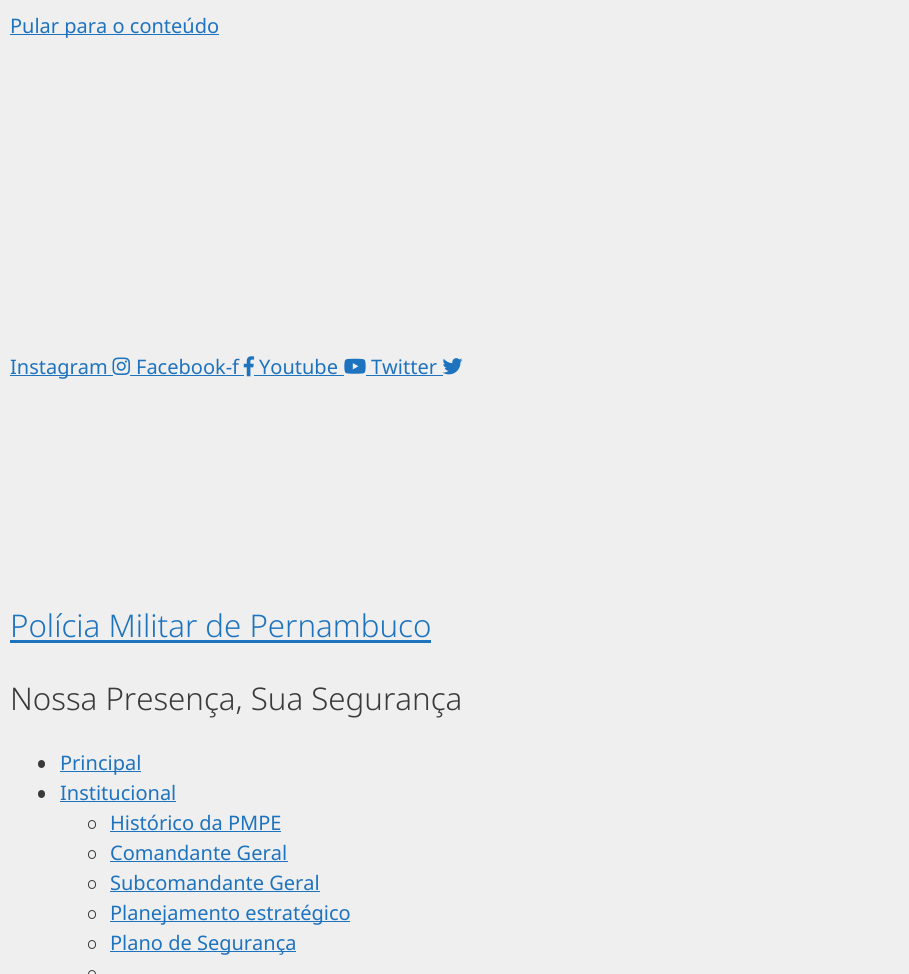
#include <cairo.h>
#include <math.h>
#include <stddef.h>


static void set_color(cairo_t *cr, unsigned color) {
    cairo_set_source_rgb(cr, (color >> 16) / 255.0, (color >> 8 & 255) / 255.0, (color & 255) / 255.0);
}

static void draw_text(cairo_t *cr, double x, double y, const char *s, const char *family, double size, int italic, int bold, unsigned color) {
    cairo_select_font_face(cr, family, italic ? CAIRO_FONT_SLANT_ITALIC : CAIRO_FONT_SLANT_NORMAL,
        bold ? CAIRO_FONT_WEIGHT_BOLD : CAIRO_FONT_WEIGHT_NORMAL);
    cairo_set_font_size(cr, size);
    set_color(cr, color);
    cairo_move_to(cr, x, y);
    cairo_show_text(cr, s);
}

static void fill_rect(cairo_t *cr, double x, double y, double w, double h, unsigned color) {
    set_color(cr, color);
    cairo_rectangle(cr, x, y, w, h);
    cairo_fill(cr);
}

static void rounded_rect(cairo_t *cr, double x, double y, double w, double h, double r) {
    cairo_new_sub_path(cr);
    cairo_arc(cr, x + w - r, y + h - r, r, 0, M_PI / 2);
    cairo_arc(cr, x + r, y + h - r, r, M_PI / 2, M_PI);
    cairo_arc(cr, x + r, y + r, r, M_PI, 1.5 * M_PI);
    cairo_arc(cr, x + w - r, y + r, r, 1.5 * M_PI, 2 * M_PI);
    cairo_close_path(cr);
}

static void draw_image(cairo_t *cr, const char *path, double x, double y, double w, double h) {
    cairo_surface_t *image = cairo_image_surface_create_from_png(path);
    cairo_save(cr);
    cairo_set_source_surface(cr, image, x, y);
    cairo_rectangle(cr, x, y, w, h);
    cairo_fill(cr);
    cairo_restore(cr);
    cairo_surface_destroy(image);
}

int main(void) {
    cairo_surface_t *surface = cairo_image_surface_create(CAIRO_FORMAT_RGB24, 909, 974);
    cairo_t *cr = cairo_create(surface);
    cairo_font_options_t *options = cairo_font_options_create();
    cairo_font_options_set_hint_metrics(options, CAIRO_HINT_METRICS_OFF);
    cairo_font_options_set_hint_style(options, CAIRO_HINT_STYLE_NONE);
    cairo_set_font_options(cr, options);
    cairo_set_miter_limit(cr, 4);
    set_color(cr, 0xEFEFEF);
    cairo_paint(cr);
    fill_rect(cr, 10, 34, 209, 1, 0x1E73BE);
    draw_text(cr, 10, 33, "Pular para o conteúdo", "Noto Sans", 20, 0, 0, 0x1E73BE);
    fill_rect(cr, 10, 375, 103, 1, 0x1E73BE);
    draw_text(cr, 10, 374, "Instagram", "Noto Sans", 20, 0, 0, 0x1E73BE);
    draw_image(cr, "assets/img1.png", 112, 357, 18, 18);
    fill_rect(cr, 130, 375, 114, 1, 0x1E73BE);
    draw_text(cr, 136, 374, "Facebook-f", "Noto Sans", 20, 0, 0, 0x1E73BE);
    draw_image(cr, "assets/img2.png", 243, 356, 12, 21);
    fill_rect(cr, 254, 375, 90, 1, 0x1E73BE);
    draw_text(cr, 259, 374, "Youtube", "Noto Sans", 20, 0, 0, 0x1E73BE);
    draw_image(cr, "assets/img3.png", 344, 358, 22, 16);
    fill_rect(cr, 366, 375, 77, 1, 0x1E73BE);
    draw_text(cr, 371, 374, "Twitter", "Noto Sans", 20, 0, 0, 0x1E73BE);
    draw_image(cr, "assets/img4.png", 442, 358, 21, 17);
    draw_text(cr, 10, 637, "Polícia Militar de Pernambuco", "Noto Sans Light", 31.25, 0, 0, 0x1E73BE);
    fill_rect(cr, 10, 640, 421, 3, 0x1E73BE);
    draw_text(cr, 10, 710, "Nossa Presença, Sua Segurança", "Noto Sans Light", 31.25, 0, 0, 0x3A3A3A);
    rounded_rect(cr, 38, 760, 7, 8, 3.5);
    cairo_fill(cr);
    fill_rect(cr, 60, 771, 81, 1, 0x1E73BE);
    draw_text(cr, 60, 770, "Principal", "Noto Sans", 20, 0, 0, 0x1E73BE);
    set_color(cr, 0x3A3A3A);
    rounded_rect(cr, 38, 790, 7, 8, 3.5);
    cairo_fill(cr);
    draw_text(cr, 60, 800, "Institucional", "Noto Sans", 20, 0, 0, 0x1E73BE);
    fill_rect(cr, 60, 801, 116, 1, 0x1E73BE);
    rounded_rect(cr, 88.5, 820.5, 7, 8, 3.5);
    set_color(cr, 0x3A3A3A);
    cairo_set_line_width(cr, 1);
    cairo_stroke(cr);
    draw_text(cr, 110, 830, "Histórico da PMPE", "Noto Sans", 20, 0, 0, 0x1E73BE);
    fill_rect(cr, 110, 831, 171, 1, 0x1E73BE);
    rounded_rect(cr, 88.5, 850.5, 7, 8, 3.5);
    set_color(cr, 0x3A3A3A);
    cairo_stroke(cr);
    draw_text(cr, 110, 860, "Comandante Geral", "Noto Sans", 20, 0, 0, 0x1E73BE);
    fill_rect(cr, 110, 861, 178, 1, 0x1E73BE);
    rounded_rect(cr, 88.5, 880.5, 7, 8, 3.5);
    set_color(cr, 0x3A3A3A);
    cairo_stroke(cr);
    draw_text(cr, 110, 890, "Subcomandante Geral", "Noto Sans", 20, 0, 0, 0x1E73BE);
    fill_rect(cr, 110, 891, 210, 1, 0x1E73BE);
    rounded_rect(cr, 88.5, 910.5, 7, 8, 3.5);
    set_color(cr, 0x3A3A3A);
    cairo_stroke(cr);
    fill_rect(cr, 110, 921, 240, 1, 0x1E73BE);
    draw_text(cr, 110, 920, "Planejamento estratégico", "Noto Sans", 20, 0, 0, 0x1E73BE);
    rounded_rect(cr, 88.5, 940.5, 7, 8, 3.5);
    set_color(cr, 0x3A3A3A);
    cairo_stroke(cr);
    fill_rect(cr, 110, 951, 186, 1, 0x1E73BE);
    draw_text(cr, 110, 950, "Plano de Segurança", "Noto Sans", 20, 0, 0, 0x1E73BE);
    rounded_rect(cr, 88.5, 970.5, 7, 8, 3.5);
    set_color(cr, 0x3A3A3A);
    cairo_stroke(cr);
    cairo_surface_write_to_png(surface, "output.png");
    cairo_font_options_destroy(options);
    cairo_destroy(cr);
    cairo_surface_destroy(surface);
    return 0;
}
